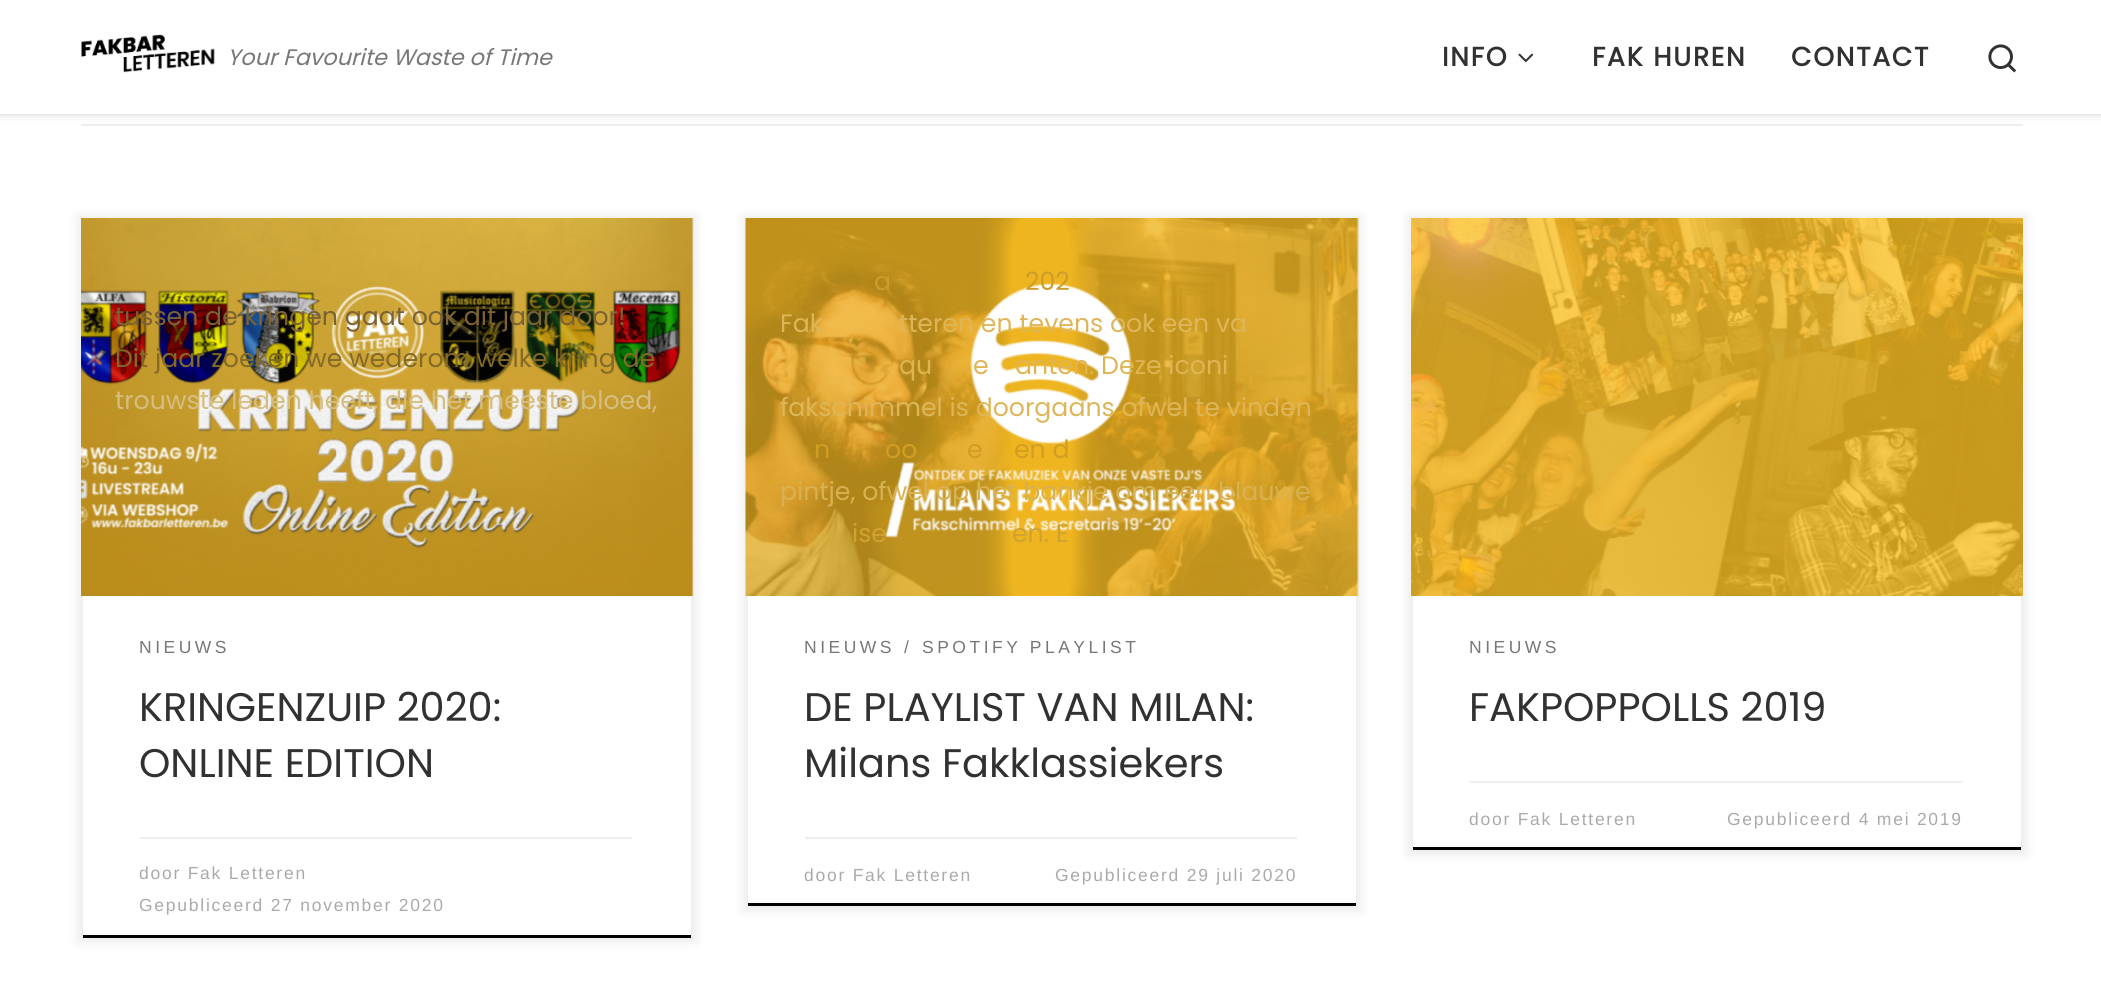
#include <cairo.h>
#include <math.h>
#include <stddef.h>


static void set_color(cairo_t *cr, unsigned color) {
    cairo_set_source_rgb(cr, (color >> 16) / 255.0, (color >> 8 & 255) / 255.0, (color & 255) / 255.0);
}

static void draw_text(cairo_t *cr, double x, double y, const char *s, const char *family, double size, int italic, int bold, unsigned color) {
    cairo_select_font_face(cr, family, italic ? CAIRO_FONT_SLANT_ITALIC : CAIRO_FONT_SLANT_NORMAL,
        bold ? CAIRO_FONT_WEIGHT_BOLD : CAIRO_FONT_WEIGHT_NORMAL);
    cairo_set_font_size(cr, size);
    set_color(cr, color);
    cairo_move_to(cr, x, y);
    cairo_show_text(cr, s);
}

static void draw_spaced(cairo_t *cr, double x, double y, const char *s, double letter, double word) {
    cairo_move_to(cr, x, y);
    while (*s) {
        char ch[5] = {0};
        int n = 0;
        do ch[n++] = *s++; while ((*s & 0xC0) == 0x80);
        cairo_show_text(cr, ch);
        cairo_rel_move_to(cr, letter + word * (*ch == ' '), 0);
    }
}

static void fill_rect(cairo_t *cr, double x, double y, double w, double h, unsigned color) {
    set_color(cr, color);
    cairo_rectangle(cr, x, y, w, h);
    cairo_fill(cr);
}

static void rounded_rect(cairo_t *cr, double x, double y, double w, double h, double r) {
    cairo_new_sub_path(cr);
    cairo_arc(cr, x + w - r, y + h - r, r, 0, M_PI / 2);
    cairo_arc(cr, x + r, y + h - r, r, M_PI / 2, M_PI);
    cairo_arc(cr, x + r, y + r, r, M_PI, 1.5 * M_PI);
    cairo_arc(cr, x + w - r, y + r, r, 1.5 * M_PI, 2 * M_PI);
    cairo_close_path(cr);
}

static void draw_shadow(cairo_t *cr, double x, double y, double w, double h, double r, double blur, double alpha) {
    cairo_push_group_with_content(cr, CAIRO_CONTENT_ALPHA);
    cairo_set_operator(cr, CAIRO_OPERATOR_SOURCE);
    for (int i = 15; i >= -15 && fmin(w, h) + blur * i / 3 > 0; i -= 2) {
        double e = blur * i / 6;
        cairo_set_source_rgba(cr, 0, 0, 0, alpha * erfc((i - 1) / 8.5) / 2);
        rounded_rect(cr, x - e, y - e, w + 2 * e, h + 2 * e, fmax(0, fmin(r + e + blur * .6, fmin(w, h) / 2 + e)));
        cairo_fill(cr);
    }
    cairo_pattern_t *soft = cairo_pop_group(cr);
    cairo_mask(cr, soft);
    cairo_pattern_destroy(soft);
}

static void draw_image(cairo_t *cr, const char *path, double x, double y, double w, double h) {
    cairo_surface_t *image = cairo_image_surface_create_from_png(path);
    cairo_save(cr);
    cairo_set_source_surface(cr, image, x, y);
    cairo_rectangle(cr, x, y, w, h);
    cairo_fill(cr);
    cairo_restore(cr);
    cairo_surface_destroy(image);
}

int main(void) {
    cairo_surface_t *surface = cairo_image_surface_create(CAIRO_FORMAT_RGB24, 2101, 983);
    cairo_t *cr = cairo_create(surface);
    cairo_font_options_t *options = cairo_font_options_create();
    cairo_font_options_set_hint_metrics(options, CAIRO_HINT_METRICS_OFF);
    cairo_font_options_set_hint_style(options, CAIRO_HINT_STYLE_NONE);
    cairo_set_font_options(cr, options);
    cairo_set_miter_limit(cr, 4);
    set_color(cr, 0xFFFFFF);
    cairo_paint(cr);
    fill_rect(cr, 81, 124, 1942, 2, 0xECEEEF);
    cairo_save(cr);
    cairo_set_fill_rule(cr, CAIRO_FILL_RULE_EVEN_ODD);
    cairo_new_path(cr);
    cairo_move_to(cr, 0, 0);
    cairo_line_to(cr, 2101, 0);
    cairo_line_to(cr, 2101, 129);
    cairo_line_to(cr, 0, 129);
    cairo_close_path(cr);
    cairo_move_to(cr, 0, 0);
    cairo_line_to(cr, 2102, 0);
    cairo_line_to(cr, 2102, 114);
    cairo_line_to(cr, 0, 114);
    cairo_close_path(cr);
    cairo_clip(cr);
    set_color(cr, 0x000000);
    draw_shadow(cr, 0, 0, 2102, 114, 0, 4.5, 0.2);
    cairo_restore(cr);
    cairo_set_source_rgba(cr, 1, 1, 1, 0.9);
    cairo_rectangle(cr, 0, 113, 2101, 1);
    cairo_fill(cr);
    draw_image(cr, "assets/img1.png", 81, 34, 134, 39);
    draw_text(cr, 227, 65, "Your Favourite Waste of Time", "Poppins", 22.4, 1, 0, 0x777777);
    cairo_select_font_face(cr, "Poppins", CAIRO_FONT_SLANT_NORMAL, CAIRO_FONT_WEIGHT_BOLD);
    cairo_set_font_size(cr, 26.5);
    set_color(cr, 0x313131);
    draw_spaced(cr, 1442, 66, "INFO", 1.75, 0);
    draw_image(cr, "assets/img2.png", 1518, 53, 16, 10);
    draw_spaced(cr, 1592, 66, "FAK HUREN", 1.75, 0);
    draw_spaced(cr, 1791, 66, "CONTACT", 1.75, 0);
    draw_image(cr, "assets/img3.png", 1988, 44, 29, 29);
    set_color(cr, 0x000000);
    draw_shadow(cr, 77, 215, 620, 728, 0, 5, 0.07);
    fill_rect(cr, 83, 596, 608, 339, 0xFFFFFF);
    fill_rect(cr, 81, 935, 612, 3, 0x000000);
    cairo_rectangle(cr, 82, 220, 610, 719);
    set_color(cr, 0xEFEFEF);
    cairo_stroke(cr);
    draw_image(cr, "assets/img4.png", 81, 218, 613, 378);
    draw_text(cr, 115, 325, "tussen de kringen gaat ook dit jaar door!", "Poppins", 25.2, 0, 0, 0x7C6335);
    draw_text(cr, 115, 367, "Dit jaar zoeken we wederom welke kring de", "Poppins", 25.2, 0, 0, 0x836A27);
    draw_text(cr, 115, 409, "trouwste leden heeft, die het meeste bloed,", "Poppins", 25.2, 0, 0, 0xD5BE81);
    cairo_select_font_face(cr, "Liberation Sans", CAIRO_FONT_SLANT_NORMAL, CAIRO_FONT_WEIGHT_NORMAL);
    cairo_set_font_size(cr, 17.5);
    set_color(cr, 0x777777);
    draw_spaced(cr, 139, 653, "NIEUWS", 3.5, 0);
    draw_text(cr, 139, 721, "KRINGENZUIP 2020:", "Poppins", 39.9, 0, 0, 0x313131);
    draw_text(cr, 139, 777, "ONLINE EDITION", "Poppins", 39.9, 0, 0, 0x313131);
    fill_rect(cr, 140, 837, 492, 2, 0xECEEEF);
    cairo_select_font_face(cr, "Liberation Sans", CAIRO_FONT_SLANT_NORMAL, CAIRO_FONT_WEIGHT_NORMAL);
    cairo_set_font_size(cr, 17.5);
    set_color(cr, 0xAAAAAA);
    draw_spaced(cr, 139, 879, "door Fak Letteren", 1.75, 0);
    draw_spaced(cr, 139, 911, "Gepubliceerd 27 november 2020", 1.75, 0);
    cairo_save(cr);
    cairo_set_fill_rule(cr, CAIRO_FILL_RULE_EVEN_ODD);
    cairo_new_path(cr);
    cairo_move_to(cr, 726, 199);
    cairo_line_to(cr, 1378, 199);
    cairo_line_to(cr, 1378, 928);
    cairo_line_to(cr, 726, 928);
    cairo_close_path(cr);
    cairo_move_to(cr, 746, 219);
    cairo_line_to(cr, 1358, 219);
    cairo_line_to(cr, 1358, 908);
    cairo_line_to(cr, 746, 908);
    cairo_close_path(cr);
    cairo_clip(cr);
    set_color(cr, 0x000000);
    draw_shadow(cr, 742, 215, 620, 697, 0, 5, 0.07);
    cairo_restore(cr);
    fill_rect(cr, 746, 903, 612, 3, 0x000000);
    cairo_rectangle(cr, 747, 220, 610, 687);
    set_color(cr, 0xEFEFEF);
    cairo_stroke(cr);
    draw_image(cr, "assets/img5.png", 745, 218, 614, 378);
    draw_text(cr, 874, 290, "a", "Poppins", 25.2, 0, 0, 0xCC9D28);
    draw_text(cr, 1025, 290, "202", "Poppins", 25.2, 0, 0, 0xCC9D28);
    draw_text(cr, 780, 332, "Fak", "Poppins", 25.2, 0, 0, 0xDEB659);
    draw_text(cr, 899, 332, "tteren en tevens ook een va", "Poppins", 25.2, 0, 0, 0xDEB659);
    draw_text(cr, 899, 374, "qu", "Poppins", 25.2, 0, 0, 0xDFB553);
    draw_text(cr, 973, 374, "e", "Poppins", 25.2, 0, 0, 0xDFB553);
    draw_text(cr, 1015, 374, "anten. Deze iconi", "Poppins", 25.2, 0, 0, 0xDFB553);
    draw_text(cr, 780, 416, "fakschimmel is doorgaans ofwel te vinden", "Poppins", 25.2, 0, 0, 0xDEB659);
    draw_text(cr, 814, 458, "n", "Poppins", 25.2, 0, 0, 0xD19E22);
    draw_text(cr, 885, 458, "oo", "Poppins", 25.2, 0, 0, 0xD19E22);
    draw_text(cr, 967, 458, "e", "Poppins", 25.2, 0, 0, 0xD19E22);
    draw_text(cr, 1014, 458, "en d", "Poppins", 25.2, 0, 0, 0xD19E22);
    draw_text(cr, 780, 500, "pintje, ofwel op het bankje om een blauwe", "Poppins", 25.2, 0, 0, 0xD8B153);
    draw_text(cr, 852, 542, "ise", "Poppins", 25.2, 0, 0, 0xD0A230);
    draw_text(cr, 1012, 542, "en. E", "Poppins", 25.2, 0, 0, 0xD0A230);
    cairo_select_font_face(cr, "Liberation Sans", CAIRO_FONT_SLANT_NORMAL, CAIRO_FONT_WEIGHT_NORMAL);
    cairo_set_font_size(cr, 17.5);
    set_color(cr, 0x777777);
    draw_spaced(cr, 804, 653, "NIEUWS", 3.5, 0);
    draw_spaced(cr, 904, 653, "/", 3.5, 0);
    draw_spaced(cr, 922, 653, "SPOTIFY PLAYLIST", 3.5, 0);
    draw_text(cr, 804, 721, "DE PLAYLIST VAN MILAN:", "Poppins", 39.9, 0, 0, 0x313131);
    draw_text(cr, 804, 777, "Milans Fakklassiekers", "Poppins", 39.9, 0, 0, 0x313131);
    fill_rect(cr, 805, 837, 492, 2, 0xECEEEF);
    cairo_select_font_face(cr, "Liberation Sans", CAIRO_FONT_SLANT_NORMAL, CAIRO_FONT_WEIGHT_NORMAL);
    cairo_set_font_size(cr, 17.5);
    set_color(cr, 0xAAAAAA);
    draw_spaced(cr, 804, 881, "door Fak Letteren", 1.75, 0);
    draw_spaced(cr, 1055, 881, "Gepubliceerd 29 juli 2020", 1.75, 0);
    cairo_save(cr);
    cairo_set_fill_rule(cr, CAIRO_FILL_RULE_EVEN_ODD);
    cairo_new_path(cr);
    cairo_move_to(cr, 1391, 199);
    cairo_line_to(cr, 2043, 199);
    cairo_line_to(cr, 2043, 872);
    cairo_line_to(cr, 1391, 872);
    cairo_close_path(cr);
    cairo_move_to(cr, 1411, 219);
    cairo_line_to(cr, 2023, 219);
    cairo_line_to(cr, 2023, 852);
    cairo_line_to(cr, 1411, 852);
    cairo_close_path(cr);
    cairo_clip(cr);
    set_color(cr, 0x000000);
    draw_shadow(cr, 1407, 215, 620, 641, 0, 5, 0.07);
    cairo_restore(cr);
    fill_rect(cr, 1411, 847, 612, 3, 0x000000);
    cairo_rectangle(cr, 1412, 220, 610, 631);
    set_color(cr, 0xEFEFEF);
    cairo_stroke(cr);
    draw_image(cr, "assets/img6.png", 1411, 218, 612, 378);
    set_color(cr, 0x777777);
    draw_spaced(cr, 1469, 653, "NIEUWS", 3.5, 0);
    draw_text(cr, 1469, 721, "FAKPOPPOLLS 2019", "Poppins", 39.9, 0, 0, 0x313131);
    fill_rect(cr, 1470, 781, 492, 2, 0xECEEEF);
    cairo_select_font_face(cr, "Liberation Sans", CAIRO_FONT_SLANT_NORMAL, CAIRO_FONT_WEIGHT_NORMAL);
    cairo_set_font_size(cr, 17.5);
    set_color(cr, 0xAAAAAA);
    draw_spaced(cr, 1469, 825, "door Fak Letteren", 1.75, 0);
    draw_spaced(cr, 1727, 825, "Gepubliceerd 4 mei 2019", 1.75, 0);
    cairo_surface_write_to_png(surface, "output.png");
    cairo_font_options_destroy(options);
    cairo_destroy(cr);
    cairo_surface_destroy(surface);
    return 0;
}
